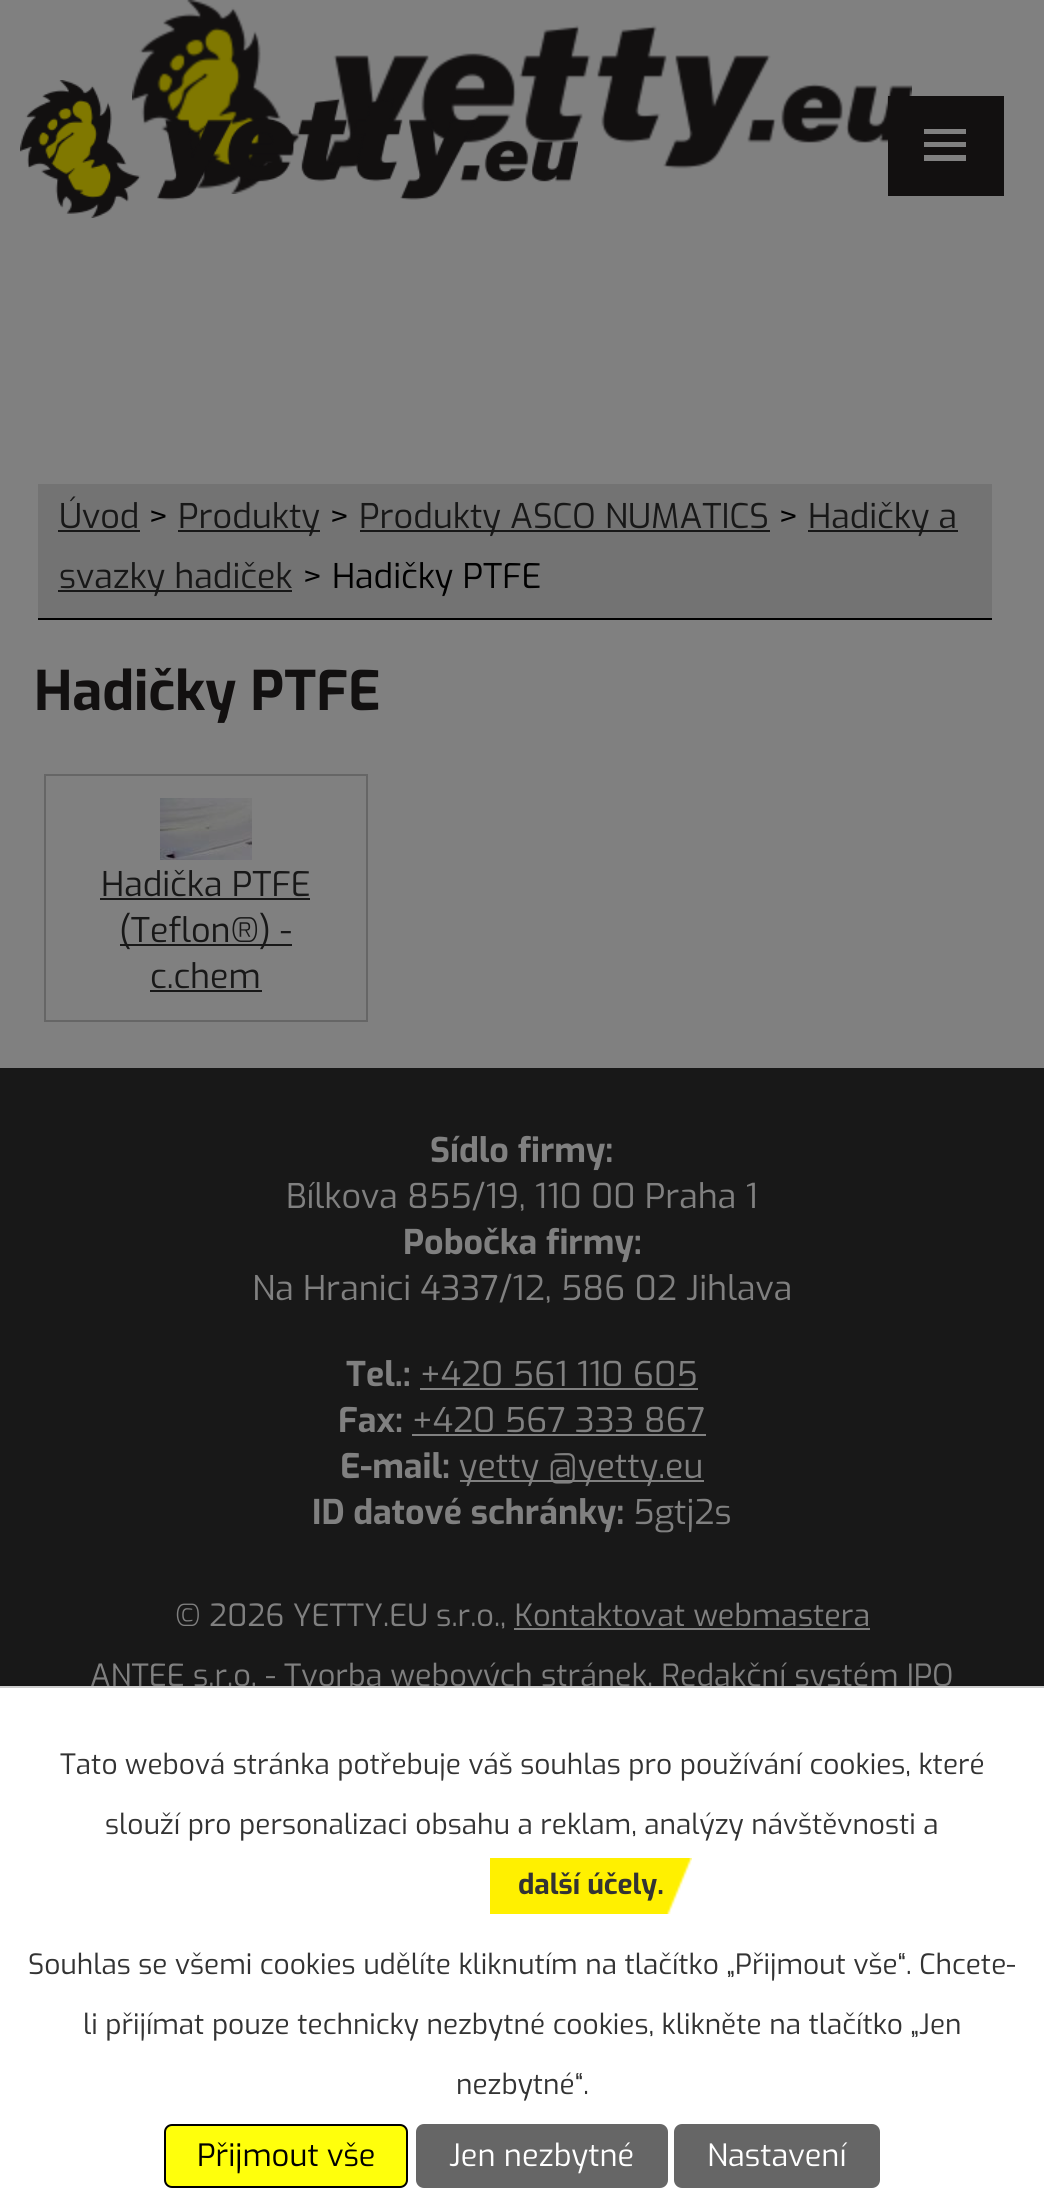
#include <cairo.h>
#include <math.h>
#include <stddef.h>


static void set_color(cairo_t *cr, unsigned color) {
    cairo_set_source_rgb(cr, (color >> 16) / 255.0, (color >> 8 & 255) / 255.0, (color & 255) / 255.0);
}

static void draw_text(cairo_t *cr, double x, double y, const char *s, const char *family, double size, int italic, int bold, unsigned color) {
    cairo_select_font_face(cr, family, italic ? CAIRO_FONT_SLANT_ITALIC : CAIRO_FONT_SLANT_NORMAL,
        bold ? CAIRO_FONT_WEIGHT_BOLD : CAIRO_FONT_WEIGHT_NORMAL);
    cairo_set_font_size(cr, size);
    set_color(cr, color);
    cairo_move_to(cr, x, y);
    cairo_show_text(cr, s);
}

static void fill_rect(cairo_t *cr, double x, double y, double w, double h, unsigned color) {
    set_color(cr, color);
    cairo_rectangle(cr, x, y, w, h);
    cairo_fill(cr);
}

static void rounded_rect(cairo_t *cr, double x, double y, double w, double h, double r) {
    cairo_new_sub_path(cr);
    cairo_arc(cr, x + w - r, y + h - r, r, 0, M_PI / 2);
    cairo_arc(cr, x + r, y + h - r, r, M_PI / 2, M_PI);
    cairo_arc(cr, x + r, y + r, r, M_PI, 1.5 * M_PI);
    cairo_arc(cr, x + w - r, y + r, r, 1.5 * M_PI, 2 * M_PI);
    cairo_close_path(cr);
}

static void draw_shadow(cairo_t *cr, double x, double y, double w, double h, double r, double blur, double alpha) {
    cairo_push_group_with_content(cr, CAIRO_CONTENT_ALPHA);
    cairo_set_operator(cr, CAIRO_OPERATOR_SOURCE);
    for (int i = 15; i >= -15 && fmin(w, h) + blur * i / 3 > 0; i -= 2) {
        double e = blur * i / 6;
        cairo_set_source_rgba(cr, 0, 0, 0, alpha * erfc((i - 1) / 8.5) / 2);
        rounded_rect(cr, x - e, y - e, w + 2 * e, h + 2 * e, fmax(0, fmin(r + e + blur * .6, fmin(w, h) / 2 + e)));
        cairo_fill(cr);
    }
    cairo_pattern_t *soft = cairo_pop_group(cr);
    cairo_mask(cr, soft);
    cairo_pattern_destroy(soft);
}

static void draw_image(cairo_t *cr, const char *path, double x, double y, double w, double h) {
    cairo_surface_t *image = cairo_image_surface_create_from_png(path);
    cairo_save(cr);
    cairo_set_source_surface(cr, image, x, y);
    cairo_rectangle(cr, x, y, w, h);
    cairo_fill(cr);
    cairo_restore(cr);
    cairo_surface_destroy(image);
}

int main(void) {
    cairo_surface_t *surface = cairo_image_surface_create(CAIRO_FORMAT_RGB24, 1044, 2203);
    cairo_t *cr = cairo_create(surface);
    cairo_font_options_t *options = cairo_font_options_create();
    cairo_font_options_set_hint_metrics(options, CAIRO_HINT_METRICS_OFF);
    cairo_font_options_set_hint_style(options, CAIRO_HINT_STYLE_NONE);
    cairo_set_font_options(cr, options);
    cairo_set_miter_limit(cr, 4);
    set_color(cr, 0x808080);
    cairo_paint(cr);
    draw_image(cr, "assets/img1.png", 132, 0, 780, 194);
    draw_image(cr, "assets/img2.png", 20, 80, 558, 138);
    fill_rect(cr, 888, 96, 116, 100, 0x121010);
    set_color(cr, 0x808080);
    cairo_new_path(cr);
    cairo_move_to(cr, 924, 161);
    cairo_line_to(cr, 924, 155);
    cairo_line_to(cr, 966, 155);
    cairo_line_to(cr, 966, 161);
    cairo_close_path(cr);
    cairo_move_to(cr, 924, 129);
    cairo_line_to(cr, 966, 129);
    cairo_line_to(cr, 966, 134);
    cairo_line_to(cr, 924, 134);
    cairo_close_path(cr);
    cairo_move_to(cr, 924, 147);
    cairo_line_to(cr, 924, 142);
    cairo_line_to(cr, 966, 142);
    cairo_line_to(cr, 966, 147);
    cairo_close_path(cr);
    cairo_fill(cr);
    fill_rect(cr, 38, 484, 954, 134, 0x737373);
    fill_rect(cr, 38, 618, 954, 2, 0x000000);
    draw_text(cr, 59, 528, "Úvod", "Exo", 34, 0, 0, 0x181818);
    fill_rect(cr, 58, 530, 82, 2, 0x181818);
    draw_text(cr, 148, 528, ">", "Exo", 34, 0, 0, 0x000000);
    fill_rect(cr, 178, 530, 142, 2, 0x181818);
    draw_text(cr, 178, 528, "Produkty", "Exo", 34, 0, 0, 0x181818);
    draw_text(cr, 329, 528, ">", "Exo", 34, 0, 0, 0x000000);
    fill_rect(cr, 360, 530, 410, 2, 0x181818);
    draw_text(cr, 359, 528, "Produkty ASCO NUMATICS", "Exo", 34, 0, 0, 0x181818);
    draw_text(cr, 778, 528, ">", "Exo", 34, 0, 0, 0x000000);
    fill_rect(cr, 808, 530, 150, 2, 0x181818);
    draw_text(cr, 808, 528, "Hadičky a", "Exo", 34, 0, 0, 0x181818);
    fill_rect(cr, 58, 590, 234, 2, 0x181818);
    draw_text(cr, 59, 588, "svazky hadiček", "Exo", 34, 0, 0, 0x181818);
    draw_text(cr, 302, 588, "> Hadičky PTFE", "Exo", 34, 0, 0, 0x000000);
    draw_text(cr, 34, 710, "Hadičky PTFE", "Exo", 54.5, 0, 1, 0x121010);
    cairo_rectangle(cr, 45, 775, 322, 246);
    set_color(cr, 0x666666);
    cairo_stroke(cr);
    draw_image(cr, "assets/img3.png", 160, 798, 92, 62);
    draw_text(cr, 101, 896, "Hadička PTFE", "Exo", 34, 0, 0, 0x181818);
    fill_rect(cr, 100, 898, 210, 2, 0x181818);
    fill_rect(cr, 120, 944, 172, 2, 0x181818);
    draw_text(cr, 119, 942, "(Teflon®) -", "Exo", 34, 0, 0, 0x181818);
    draw_text(cr, 150, 988, "c.chem", "Exo", 34, 0, 0, 0x181818);
    fill_rect(cr, 150, 990, 112, 2, 0x181818);
    fill_rect(cr, 0, 1068, 1044, 618, 0x181818);
    draw_text(cr, 430, 1162, "Sídlo firmy:", "Exo", 34, 0, 1, 0x808080);
    draw_text(cr, 286, 1208, "Bílkova 855/19, 110 00 Praha 1", "Exo", 34, 0, 0, 0x808080);
    draw_text(cr, 403, 1254, "Pobočka firmy:", "Exo", 34, 0, 1, 0x808080);
    draw_text(cr, 252, 1300, "Na Hranici 4337/12, 586 02 Jihlava", "Exo", 34, 0, 0, 0x808080);
    draw_text(cr, 346, 1386, "Tel.:", "Exo", 34, 0, 1, 0x808080);
    draw_text(cr, 420, 1386, "+420 561 110 605", "Exo", 34, 0, 0, 0x808080);
    fill_rect(cr, 420, 1388, 278, 2, 0x808080);
    draw_text(cr, 338, 1432, "Fax:", "Exo", 34, 0, 1, 0x808080);
    draw_text(cr, 412, 1432, "+420 567 333 867", "Exo", 34, 0, 0, 0x808080);
    fill_rect(cr, 412, 1434, 294, 2, 0x808080);
    draw_text(cr, 340, 1478, "E-mail:", "Exo", 34, 0, 1, 0x808080);
    fill_rect(cr, 460, 1480, 244, 2, 0x808080);
    draw_text(cr, 459, 1478, "yetty @yetty.eu", "Exo", 34, 0, 0, 0x808080);
    draw_text(cr, 312, 1524, "ID datové schránky:", "Exo", 34, 0, 1, 0x808080);
    draw_text(cr, 633, 1524, "5gtj2s", "Exo", 34, 0, 0, 0x808080);
    draw_text(cr, 175, 1626, "© 2026 YETTY.EU s.r.o., Kontaktovat webmastera", "Exo", 30.6, 0, 0, 0x808080);
    fill_rect(cr, 514, 1628, 356, 2, 0x808080);
    draw_text(cr, 90, 1686, "ANTEE s.r.o. - Tvorba webových stránek, Redakční systém IPO", "Exo", 30.6, 0, 0, 0x808080);
    set_color(cr, 0x000000);
    draw_shadow(cr, 0, 1686, 1044, 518, 0, 5, 0.2);
    fill_rect(cr, 0, 1688, 1044, 515, 0xFFFFFF);
    fill_rect(cr, 0, 1686, 1044, 2, 0xCCCCCC);
    draw_text(cr, 60, 1774, "Tato webová stránka potřebuje váš souhlas pro používání cookies, které", "Exo", 28, 0, 0, 0x333333);
    draw_text(cr, 105, 1834, "slouží pro personalizaci obsahu a reklam, analýzy návštěvnosti a", "Exo", 28, 0, 0, 0x333333);
    draw_image(cr, "assets/img4.png", 490, 1858, 202, 56);
    draw_text(cr, 518, 1894, "další účely.", "Exo", 28, 0, 1, 0x333333);
    draw_text(cr, 28, 1974, "Souhlas se všemi cookies udělíte kliknutím na tlačítko „Přijmout vše“. Chcete-", "Exo", 28, 0, 0, 0x333333);
    draw_text(cr, 83, 2034, "li přijímat pouze technicky nezbytné cookies, klikněte na tlačítko „Jen", "Exo", 28, 0, 0, 0x333333);
    draw_text(cr, 456, 2094, "nezbytné“.", "Exo", 28, 0, 0, 0x333333);
    set_color(cr, 0xFFFF0C);
    rounded_rect(cr, 165, 2125, 242, 62, 7);
    cairo_fill_preserve(cr);
    set_color(cr, 0x000000);
    cairo_stroke(cr);
    draw_text(cr, 197, 2166, "Přijmout vše", "Exo", 30.75, 0, 0, 0x000000);
    set_color(cr, 0x666666);
    rounded_rect(cr, 417, 2125, 250, 62, 7);
    cairo_fill_preserve(cr);
    cairo_stroke(cr);
    draw_text(cr, 449, 2166, "Jen nezbytné", "Exo", 30.75, 0, 0, 0xFFFFFF);
    set_color(cr, 0x666666);
    rounded_rect(cr, 675, 2125, 204, 62, 7);
    cairo_fill_preserve(cr);
    cairo_stroke(cr);
    draw_text(cr, 707, 2166, "Nastavení", "Exo", 30.75, 0, 0, 0xFFFFFF);
    cairo_surface_write_to_png(surface, "output.png");
    cairo_font_options_destroy(options);
    cairo_destroy(cr);
    cairo_surface_destroy(surface);
    return 0;
}
